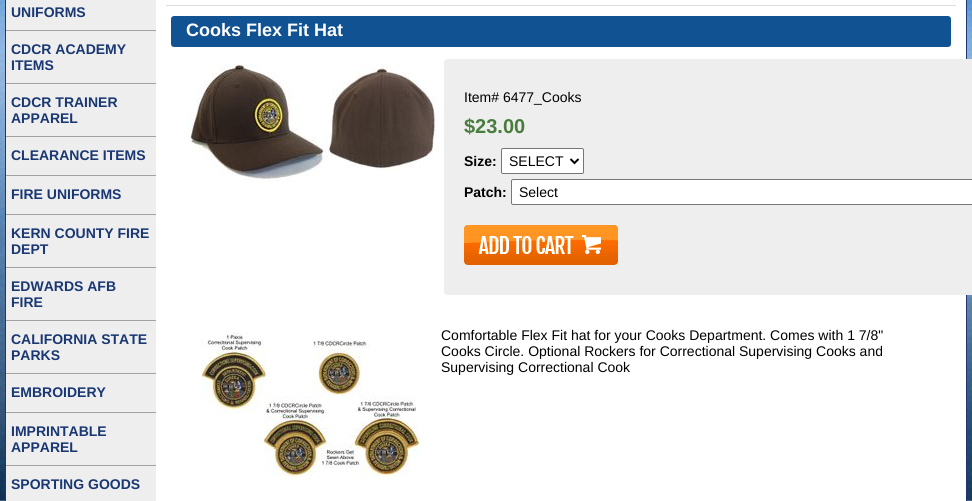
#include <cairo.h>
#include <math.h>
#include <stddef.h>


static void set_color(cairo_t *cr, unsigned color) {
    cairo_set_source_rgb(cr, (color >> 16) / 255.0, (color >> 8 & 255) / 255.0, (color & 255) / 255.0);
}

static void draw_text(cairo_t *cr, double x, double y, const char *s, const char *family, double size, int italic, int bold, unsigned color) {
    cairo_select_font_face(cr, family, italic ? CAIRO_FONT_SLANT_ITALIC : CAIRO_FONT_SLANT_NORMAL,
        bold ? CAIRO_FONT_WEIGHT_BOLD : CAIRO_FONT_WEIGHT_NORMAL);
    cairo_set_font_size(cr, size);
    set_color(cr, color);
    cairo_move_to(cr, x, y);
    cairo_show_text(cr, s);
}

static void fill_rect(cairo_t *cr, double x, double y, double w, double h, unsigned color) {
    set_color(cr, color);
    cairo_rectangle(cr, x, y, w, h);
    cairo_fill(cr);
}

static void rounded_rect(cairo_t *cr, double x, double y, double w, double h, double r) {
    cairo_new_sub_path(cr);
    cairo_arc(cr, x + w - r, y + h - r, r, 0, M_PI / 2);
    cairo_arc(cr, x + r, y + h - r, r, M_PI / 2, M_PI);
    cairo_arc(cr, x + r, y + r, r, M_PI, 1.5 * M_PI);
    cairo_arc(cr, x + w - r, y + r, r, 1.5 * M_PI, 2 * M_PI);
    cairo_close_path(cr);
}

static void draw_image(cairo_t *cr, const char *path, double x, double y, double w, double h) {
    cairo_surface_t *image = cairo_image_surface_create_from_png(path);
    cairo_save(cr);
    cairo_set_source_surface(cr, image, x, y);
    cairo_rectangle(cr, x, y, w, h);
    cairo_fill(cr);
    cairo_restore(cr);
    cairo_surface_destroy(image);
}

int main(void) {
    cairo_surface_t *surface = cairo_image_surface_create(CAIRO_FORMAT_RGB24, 972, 501);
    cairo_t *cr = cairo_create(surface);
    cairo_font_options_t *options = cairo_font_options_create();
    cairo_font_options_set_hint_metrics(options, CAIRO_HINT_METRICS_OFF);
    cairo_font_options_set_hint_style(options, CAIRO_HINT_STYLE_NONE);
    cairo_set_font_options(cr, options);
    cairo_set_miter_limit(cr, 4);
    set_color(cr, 0xFFFFFF);
    cairo_paint(cr);
    draw_image(cr, "assets/img1.png", 0, 0, 972, 501);
    fill_rect(cr, 156, 0, 810, 501, 0xFFFFFF);
    cairo_rectangle(cr, 5.5, -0.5, 961, 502);
    set_color(cr, 0x1D3772);
    cairo_set_line_width(cr, 1);
    cairo_stroke(cr);
    fill_rect(cr, 6, 0, 150, 501, 0xEEEEEE);
    fill_rect(cr, 6, 30, 150, 1, 0xA2A2A2);
    draw_text(cr, 11, 17, "UNIFORMS", "Liberation Sans", 14, 0, 1, 0x193772);
    fill_rect(cr, 6, 83, 150, 1, 0xA2A2A2);
    draw_text(cr, 11, 54, "CDCR ACADEMY", "Liberation Sans", 14, 0, 1, 0x193772);
    draw_text(cr, 11, 70, "ITEMS", "Liberation Sans", 14, 0, 1, 0x193772);
    fill_rect(cr, 6, 136, 150, 1, 0xA2A2A2);
    draw_text(cr, 11, 107, "CDCR TRAINER", "Liberation Sans", 14, 0, 1, 0x193772);
    draw_text(cr, 11, 123, "APPAREL", "Liberation Sans", 14, 0, 1, 0x193772);
    fill_rect(cr, 6, 175, 150, 1, 0xA2A2A2);
    draw_text(cr, 11, 160, "CLEARANCE ITEMS", "Liberation Sans", 14, 0, 1, 0x193772);
    fill_rect(cr, 6, 214, 150, 1, 0xA2A2A2);
    draw_text(cr, 11, 199, "FIRE UNIFORMS", "Liberation Sans", 14, 0, 1, 0x193772);
    fill_rect(cr, 6, 267, 150, 1, 0xA2A2A2);
    draw_text(cr, 11, 238, "KERN COUNTY FIRE", "Liberation Sans", 14, 0, 1, 0x193772);
    draw_text(cr, 11, 254, "DEPT", "Liberation Sans", 14, 0, 1, 0x193772);
    fill_rect(cr, 6, 320, 150, 1, 0xA2A2A2);
    draw_text(cr, 11, 291, "EDWARDS AFB", "Liberation Sans", 14, 0, 1, 0x193772);
    draw_text(cr, 11, 307, "FIRE", "Liberation Sans", 14, 0, 1, 0x193772);
    fill_rect(cr, 6, 373, 150, 1, 0xA2A2A2);
    draw_text(cr, 11, 344, "CALIFORNIA STATE", "Liberation Sans", 14, 0, 1, 0x193772);
    draw_text(cr, 11, 360, "PARKS", "Liberation Sans", 14, 0, 1, 0x193772);
    fill_rect(cr, 6, 412, 150, 1, 0xA2A2A2);
    draw_text(cr, 11, 397, "EMBROIDERY", "Liberation Sans", 14, 0, 1, 0x193772);
    fill_rect(cr, 6, 465, 150, 1, 0xA2A2A2);
    draw_text(cr, 11, 436, "IMPRINTABLE", "Liberation Sans", 14, 0, 1, 0x193772);
    draw_text(cr, 11, 452, "APPAREL", "Liberation Sans", 14, 0, 1, 0x193772);
    draw_text(cr, 11, 489, "SPORTING GOODS", "Liberation Sans", 14, 0, 1, 0x193772);
    fill_rect(cr, 166, 5, 790, 1, 0xDEDEDE);
    set_color(cr, 0x115292);
    rounded_rect(cr, 171, 16, 780, 31, 3);
    cairo_fill(cr);
    draw_text(cr, 186, 36, "Cooks Flex Fit Hat", "Liberation Sans", 18, 0, 1, 0xFFFFFF);
    draw_image(cr, "assets/img2.png", 188, 64, 248, 118);
    set_color(cr, 0xEEEEEE);
    rounded_rect(cr, 444, 59, 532, 236, 4);
    cairo_fill(cr);
    draw_text(cr, 464, 102, "Item# 6477_Cooks", "Liberation Sans", 14, 0, 0, 0x000000);
    draw_text(cr, 464, 133, "$23.00", "Liberation Sans", 20, 0, 1, 0x497D3D);
    draw_text(cr, 464, 166, "Size:", "Liberation Sans", 14, 0, 1, 0x000000);
    set_color(cr, 0xFFFFFF);
    rounded_rect(cr, 501.5, 148.5, 82, 25, 1.5);
    cairo_fill_preserve(cr);
    set_color(cr, 0x767676);
    cairo_stroke(cr);
    cairo_new_path(cr);
    cairo_move_to(cr, 570.5, 159);
    cairo_line_to(cr, 574.5, 163);
    cairo_line_to(cr, 578.5, 159);
    set_color(cr, 0x000000);
    cairo_set_line_width(cr, 2);
    cairo_stroke(cr);
    draw_text(cr, 509, 166, "SELECT", "Liberation Sans", 14, 0, 0, 0x000000);
    draw_text(cr, 464, 197, "Patch:", "Liberation Sans", 14, 0, 1, 0x000000);
    set_color(cr, 0xFFFFFF);
    rounded_rect(cr, 511.5, 179.5, 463, 25, 1.5);
    cairo_fill_preserve(cr);
    set_color(cr, 0x767676);
    cairo_set_line_width(cr, 1);
    cairo_stroke(cr);
    draw_text(cr, 519, 197, "Select", "Liberation Sans", 14, 0, 0, 0x000000);
    draw_image(cr, "assets/img3.png", 464, 225, 154, 40);
    draw_image(cr, "assets/img4.png", 201, 332, 220, 145);
    draw_text(cr, 441, 340, "Comfortable Flex Fit hat for your Cooks Department. Comes with 1 7/8\"", "Liberation Sans", 14, 0, 0, 0x000000);
    draw_text(cr, 441, 356, "Cooks Circle. Optional Rockers for Correctional Supervising Cooks and", "Liberation Sans", 14, 0, 0, 0x000000);
    draw_text(cr, 441, 372, "Supervising Correctional Cook", "Liberation Sans", 14, 0, 0, 0x000000);
    cairo_surface_write_to_png(surface, "output.png");
    cairo_font_options_destroy(options);
    cairo_destroy(cr);
    cairo_surface_destroy(surface);
    return 0;
}
